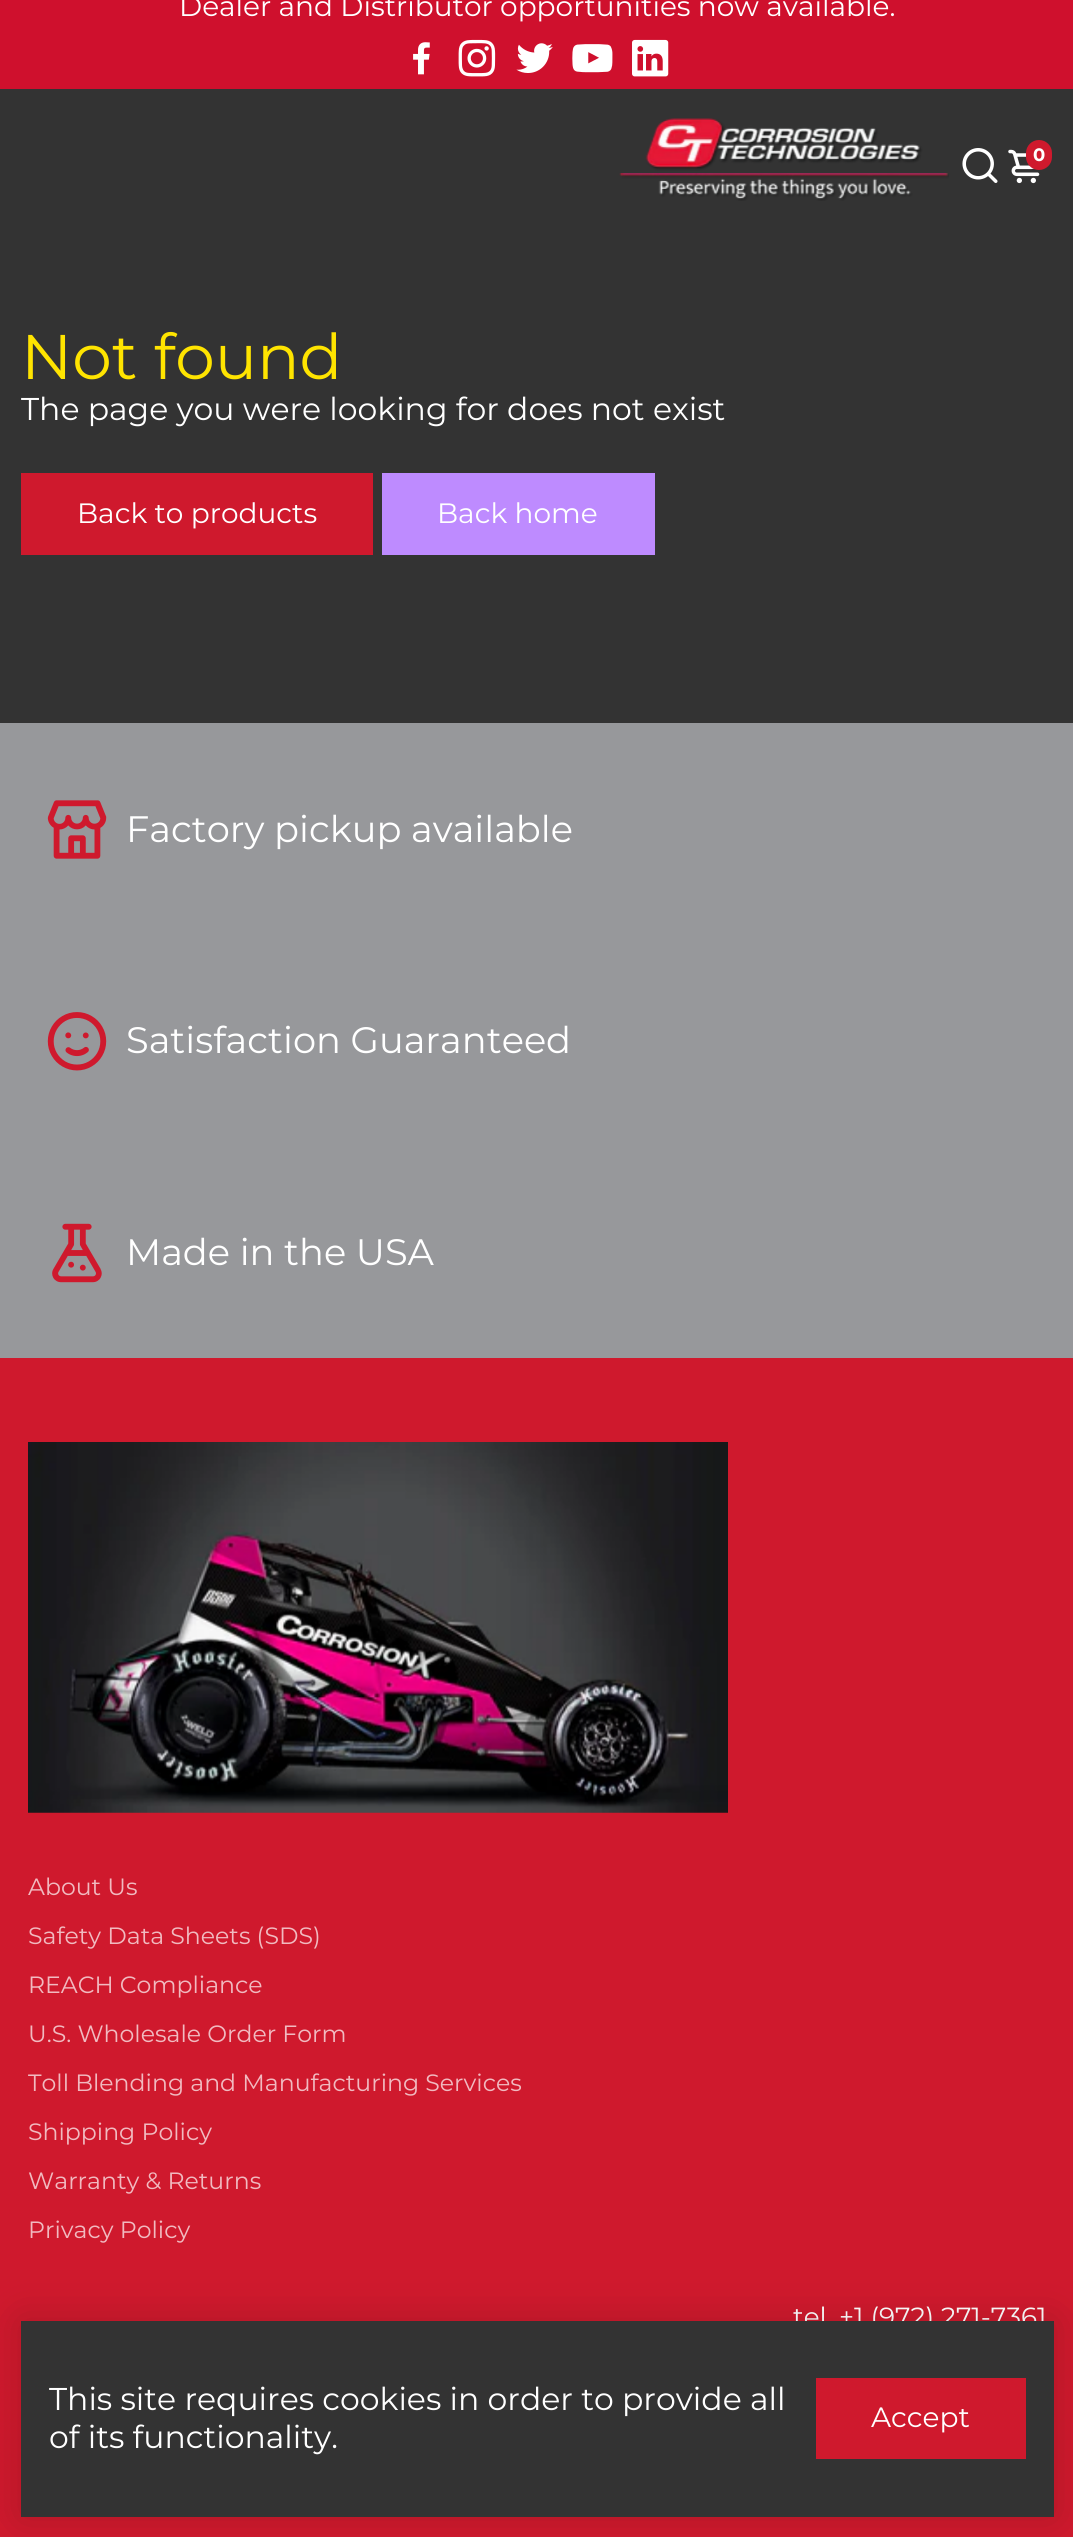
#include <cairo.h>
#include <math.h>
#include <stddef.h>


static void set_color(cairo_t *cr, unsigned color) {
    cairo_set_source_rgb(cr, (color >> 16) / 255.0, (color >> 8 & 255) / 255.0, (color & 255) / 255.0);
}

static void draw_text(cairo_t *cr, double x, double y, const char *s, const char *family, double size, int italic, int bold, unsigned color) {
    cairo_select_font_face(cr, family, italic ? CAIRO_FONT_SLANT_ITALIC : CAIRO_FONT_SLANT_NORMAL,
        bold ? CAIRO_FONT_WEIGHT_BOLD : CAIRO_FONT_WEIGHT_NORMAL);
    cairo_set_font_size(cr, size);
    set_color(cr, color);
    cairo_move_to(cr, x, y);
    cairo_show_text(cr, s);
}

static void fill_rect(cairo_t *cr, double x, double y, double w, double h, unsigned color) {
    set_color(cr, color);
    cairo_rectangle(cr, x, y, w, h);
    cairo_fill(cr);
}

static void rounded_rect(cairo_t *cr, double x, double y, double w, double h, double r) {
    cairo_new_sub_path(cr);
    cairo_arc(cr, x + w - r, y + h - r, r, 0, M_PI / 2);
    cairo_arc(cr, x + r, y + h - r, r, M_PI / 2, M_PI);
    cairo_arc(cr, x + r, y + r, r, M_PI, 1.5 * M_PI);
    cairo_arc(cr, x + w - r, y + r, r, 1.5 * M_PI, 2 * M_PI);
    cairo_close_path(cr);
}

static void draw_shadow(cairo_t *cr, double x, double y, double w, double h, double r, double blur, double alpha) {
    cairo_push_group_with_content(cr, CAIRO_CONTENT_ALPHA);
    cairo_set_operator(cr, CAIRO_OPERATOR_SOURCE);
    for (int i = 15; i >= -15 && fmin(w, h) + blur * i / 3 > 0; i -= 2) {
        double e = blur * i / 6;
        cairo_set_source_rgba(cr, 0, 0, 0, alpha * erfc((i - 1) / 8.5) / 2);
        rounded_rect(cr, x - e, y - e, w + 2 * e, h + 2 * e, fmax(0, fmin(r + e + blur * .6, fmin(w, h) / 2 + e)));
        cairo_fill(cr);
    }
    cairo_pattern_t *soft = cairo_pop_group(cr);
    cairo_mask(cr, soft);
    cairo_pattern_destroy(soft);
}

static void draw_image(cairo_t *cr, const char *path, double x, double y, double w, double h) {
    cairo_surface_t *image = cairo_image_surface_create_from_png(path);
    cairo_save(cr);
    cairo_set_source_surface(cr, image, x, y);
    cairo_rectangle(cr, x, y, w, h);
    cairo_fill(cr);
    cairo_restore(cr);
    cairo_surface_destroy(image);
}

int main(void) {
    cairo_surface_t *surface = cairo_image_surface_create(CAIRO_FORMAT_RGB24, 1073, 2537);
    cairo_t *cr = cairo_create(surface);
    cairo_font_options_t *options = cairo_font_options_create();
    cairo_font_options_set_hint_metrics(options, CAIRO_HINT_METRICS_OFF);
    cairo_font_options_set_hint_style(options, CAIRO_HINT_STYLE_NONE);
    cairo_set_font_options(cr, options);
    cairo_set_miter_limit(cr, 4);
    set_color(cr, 0x333333);
    cairo_paint(cr);
    fill_rect(cr, 0, 0, 1073, 89, 0xCF102D);
    draw_text(cr, 179, 16, "Dealer and Distributor opportunities now available.", "Montserrat", 28, 0, 0, 0xFFFFFF);
    draw_image(cr, "assets/img1.png", 413, 42, 17, 33);
    draw_image(cr, "assets/img2.png", 458, 39, 38, 38);
    draw_image(cr, "assets/img3.png", 516, 43, 37, 30);
    draw_image(cr, "assets/img4.png", 572, 44, 41, 29);
    draw_image(cr, "assets/img5.png", 632, 39, 37, 38);
    draw_image(cr, "assets/img6.png", 619, 118, 330, 83);
    draw_image(cr, "assets/img7.png", 962, 148, 36, 35);
    draw_image(cr, "assets/img8.png", 1008, 149, 32, 35);
    set_color(cr, 0xCF192D);
    rounded_rect(cr, 1026, 140, 26, 30, 13);
    cairo_fill(cr);
    draw_text(cr, 1033, 161, "0", "Montserrat", 18, 0, 1, 0xFFFFFF);
    draw_text(cr, 21, 379, "Not found", "Montserrat", 63, 0, 0, 0xFFE400);
    draw_text(cr, 21, 420, "The page you were looking for does not exist", "Montserrat", 31.5, 0, 0, 0xFFFFFF);
    fill_rect(cr, 21, 473, 352, 82, 0xCF192D);
    draw_text(cr, 77, 523, "Back to products", "Montserrat", 28, 0, 0, 0xFFFFFF);
    fill_rect(cr, 382, 473, 273, 82, 0xBE8BFF);
    draw_text(cr, 437, 523, "Back home", "Montserrat", 28, 0, 0, 0xFFFFFF);
    fill_rect(cr, 0, 723, 1073, 635, 0x97989B);
    draw_image(cr, "assets/img9.png", 47, 800, 60, 59);
    draw_text(cr, 126, 842, "Factory pickup available", "Montserrat", 36.8, 0, 0, 0xFFFFFF);
    draw_image(cr, "assets/img10.png", 47, 1012, 60, 59);
    draw_text(cr, 126, 1053, "Satisfaction Guaranteed", "Montserrat", 36.8, 0, 0, 0xFFFFFF);
    draw_image(cr, "assets/img11.png", 52, 1223, 50, 60);
    draw_text(cr, 126, 1265, "Made in the USA", "Montserrat", 36.8, 0, 0, 0xFFFFFF);
    fill_rect(cr, 0, 1358, 1073, 1179, 0xCF192D);
    draw_image(cr, "assets/img12.png", 28, 1442, 700, 371);
    draw_text(cr, 28, 1895, "About Us", "Montserrat", 23.6, 0, 0, 0xF1BAC0);
    draw_text(cr, 28, 1944, "Safety Data Sheets (SDS)", "Montserrat", 23.6, 0, 0, 0xF1BAC0);
    draw_text(cr, 28, 1993, "REACH Compliance", "Montserrat", 23.6, 0, 0, 0xF1BAC0);
    draw_text(cr, 28, 2042, "U.S. Wholesale Order Form", "Montserrat", 23.6, 0, 0, 0xF1BAC0);
    draw_text(cr, 28, 2091, "Toll Blending and Manufacturing Services", "Montserrat", 23.6, 0, 0, 0xF1BAC0);
    draw_text(cr, 28, 2140, "Shipping Policy", "Montserrat", 23.6, 0, 0, 0xF1BAC0);
    draw_text(cr, 28, 2189, "Warranty & Returns", "Montserrat", 23.6, 0, 0, 0xF1BAC0);
    draw_text(cr, 28, 2238, "Privacy Policy", "Montserrat", 23.6, 0, 0, 0xF1BAC0);
    draw_text(cr, 793, 2326, "tel. +1 (972) 271-7361", "Montserrat", 26.25, 0, 0, 0xFFFFFF);
    set_color(cr, 0x000000);
    draw_shadow(cr, 21, 2321, 1033, 196, 0, 21, 0.16);
    fill_rect(cr, 21, 2321, 1033, 196, 0x333333);
    draw_text(cr, 49, 2410, "This site requires cookies in order to provide all", "Montserrat", 31.5, 0, 0, 0xFFFFFF);
    draw_text(cr, 49, 2448, "of its functionality.", "Montserrat", 31.5, 0, 0, 0xFFFFFF);
    fill_rect(cr, 816, 2378, 210, 81, 0xCF192D);
    draw_text(cr, 871, 2427, "Accept", "Montserrat", 28, 0, 0, 0xFFFFFF);
    cairo_surface_write_to_png(surface, "output.png");
    cairo_font_options_destroy(options);
    cairo_destroy(cr);
    cairo_surface_destroy(surface);
    return 0;
}
